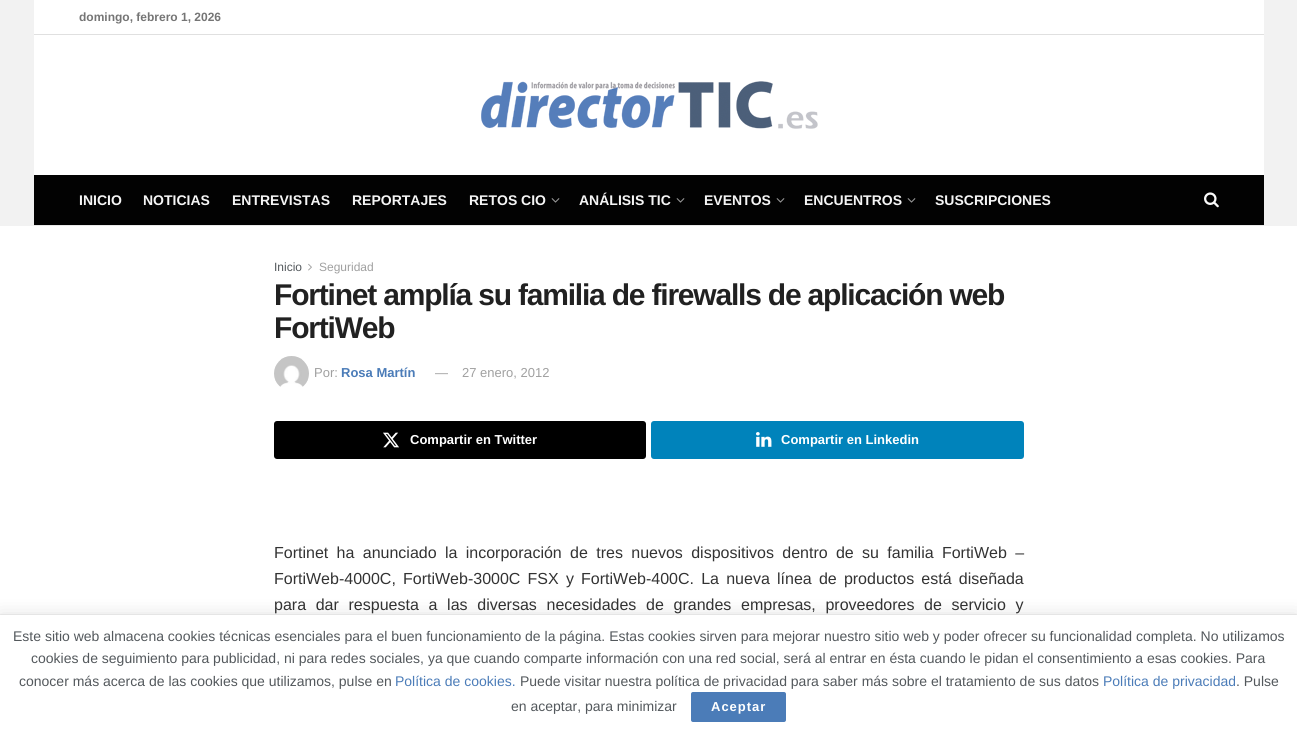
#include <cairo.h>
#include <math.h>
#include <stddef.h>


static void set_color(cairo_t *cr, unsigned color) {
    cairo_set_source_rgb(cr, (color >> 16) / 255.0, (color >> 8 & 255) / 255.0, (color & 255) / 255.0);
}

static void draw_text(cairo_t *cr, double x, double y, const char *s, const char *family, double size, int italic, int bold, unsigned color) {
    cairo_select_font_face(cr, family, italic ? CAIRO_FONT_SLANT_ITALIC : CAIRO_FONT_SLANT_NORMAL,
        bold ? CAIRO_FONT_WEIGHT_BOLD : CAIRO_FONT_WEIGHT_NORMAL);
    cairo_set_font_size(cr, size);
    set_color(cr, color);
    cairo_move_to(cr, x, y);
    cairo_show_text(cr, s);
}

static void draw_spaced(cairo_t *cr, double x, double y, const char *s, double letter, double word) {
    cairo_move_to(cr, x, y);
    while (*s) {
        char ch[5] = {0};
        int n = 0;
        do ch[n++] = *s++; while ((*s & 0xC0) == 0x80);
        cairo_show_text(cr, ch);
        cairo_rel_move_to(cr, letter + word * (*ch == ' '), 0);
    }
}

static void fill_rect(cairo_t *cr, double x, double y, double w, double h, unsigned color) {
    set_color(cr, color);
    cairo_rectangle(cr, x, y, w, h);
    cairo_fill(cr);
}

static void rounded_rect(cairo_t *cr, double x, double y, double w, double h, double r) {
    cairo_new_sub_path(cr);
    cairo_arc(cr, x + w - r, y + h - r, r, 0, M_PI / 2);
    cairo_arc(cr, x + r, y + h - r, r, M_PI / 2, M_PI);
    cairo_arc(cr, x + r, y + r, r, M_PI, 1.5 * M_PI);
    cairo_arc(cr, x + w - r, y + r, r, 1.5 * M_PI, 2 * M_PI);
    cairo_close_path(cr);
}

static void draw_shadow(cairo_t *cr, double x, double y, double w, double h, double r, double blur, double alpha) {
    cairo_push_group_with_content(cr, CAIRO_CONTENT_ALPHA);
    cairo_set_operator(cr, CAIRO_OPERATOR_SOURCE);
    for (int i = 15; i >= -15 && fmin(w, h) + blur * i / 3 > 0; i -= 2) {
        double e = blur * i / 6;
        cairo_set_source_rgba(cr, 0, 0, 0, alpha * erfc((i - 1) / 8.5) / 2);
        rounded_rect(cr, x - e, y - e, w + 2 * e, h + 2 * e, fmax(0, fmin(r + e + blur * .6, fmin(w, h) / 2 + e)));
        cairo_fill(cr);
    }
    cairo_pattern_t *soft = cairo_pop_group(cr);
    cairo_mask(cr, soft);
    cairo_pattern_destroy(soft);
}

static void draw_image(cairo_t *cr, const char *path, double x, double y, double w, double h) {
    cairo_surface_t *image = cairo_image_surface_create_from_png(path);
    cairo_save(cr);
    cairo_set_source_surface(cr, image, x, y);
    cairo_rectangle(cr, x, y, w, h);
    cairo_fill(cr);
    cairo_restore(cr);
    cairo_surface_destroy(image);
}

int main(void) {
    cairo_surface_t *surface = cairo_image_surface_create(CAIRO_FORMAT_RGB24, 1297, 732);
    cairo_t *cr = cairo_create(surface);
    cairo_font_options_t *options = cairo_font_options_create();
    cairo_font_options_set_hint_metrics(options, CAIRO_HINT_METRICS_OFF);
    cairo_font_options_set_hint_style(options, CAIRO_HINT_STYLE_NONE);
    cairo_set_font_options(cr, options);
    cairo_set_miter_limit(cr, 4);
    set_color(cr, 0xF2F2F2);
    cairo_paint(cr);
    fill_rect(cr, 34, 0, 1230, 34, 0xFFFFFF);
    fill_rect(cr, 34, 34, 1230, 1, 0xE0E0E0);
    draw_text(cr, 79, 21, "domingo, febrero 1, 2026", "Liberation Sans", 12, 0, 1, 0x757575);
    fill_rect(cr, 34, 35, 1230, 140, 0xFFFFFF);
    draw_image(cr, "assets/img1.png", 481, 81, 337, 48);
    fill_rect(cr, 34, 175, 1230, 50, 0x020202);
    fill_rect(cr, 34, 225, 1230, 1, 0xE8E8E8);
    draw_text(cr, 79, 205, "INICIO", "Liberation Sans", 14, 0, 1, 0xF5F5F5);
    draw_text(cr, 143, 205, "NOTICIAS", "Liberation Sans", 14, 0, 1, 0xF5F5F5);
    draw_text(cr, 232, 205, "ENTREVISTAS", "Liberation Sans", 14, 0, 1, 0xF5F5F5);
    draw_text(cr, 352, 205, "REPORTAJES", "Liberation Sans", 14, 0, 1, 0xF5F5F5);
    draw_text(cr, 469, 205, "RETOS CIO", "Liberation Sans", 14, 0, 1, 0xF5F5F5);
    draw_image(cr, "assets/img2.png", 551, 198, 9, 5);
    draw_text(cr, 579, 205, "ANÁLISIS TIC", "Liberation Sans", 14, 0, 1, 0xF5F5F5);
    draw_image(cr, "assets/img2.png", 676, 198, 9, 5);
    draw_text(cr, 704, 205, "EVENTOS", "Liberation Sans", 14, 0, 1, 0xF5F5F5);
    draw_image(cr, "assets/img2.png", 776, 198, 9, 5);
    draw_text(cr, 804, 205, "ENCUENTROS", "Liberation Sans", 14, 0, 1, 0xF5F5F5);
    draw_image(cr, "assets/img2.png", 907, 198, 9, 5);
    draw_text(cr, 935, 205, "SUSCRIPCIONES", "Liberation Sans", 14, 0, 1, 0xF5F5F5);
    draw_image(cr, "assets/img3.png", 1204, 192, 15, 16);
    fill_rect(cr, 0, 226, 1297, 389, 0xFFFFFF);
    draw_text(cr, 274, 271, "Inicio", "Liberation Sans", 12, 0, 0, 0x53585C);
    draw_image(cr, "assets/img4.png", 308, 263, 4, 8);
    draw_text(cr, 319, 271, "Seguridad", "Liberation Sans", 12, 0, 0, 0xA0A0A0);
    cairo_select_font_face(cr, "Liberation Sans", CAIRO_FONT_SLANT_NORMAL, CAIRO_FONT_WEIGHT_BOLD);
    cairo_set_font_size(cr, 30);
    set_color(cr, 0x212121);
    draw_spaced(cr, 274, 305, "Fortinet amplía su familia de firewalls de aplicación web", -1.2, 0);
    draw_spaced(cr, 274, 338, "FortiWeb", -1.2, 0);
    draw_image(cr, "assets/img5.png", 274, 356, 35, 31);
    draw_text(cr, 314, 377, "Por:", "Liberation Sans", 13, 0, 0, 0xA0A0A0);
    draw_text(cr, 341, 377, "Rosa Martín", "Liberation Sans", 13, 0, 1, 0x4B7CB8);
    draw_text(cr, 435, 377, "—", "Liberation Sans", 13, 0, 0, 0xA0A0A0);
    draw_text(cr, 462, 377, "27 enero, 2012", "Liberation Sans", 13, 0, 0, 0xA0A0A0);
    set_color(cr, 0x000000);
    rounded_rect(cr, 274, 421, 372, 38, 3);
    cairo_fill(cr);
    draw_image(cr, "assets/img6.png", 383, 432, 16, 16);
    draw_text(cr, 410, 444, "Compartir en Twitter", "Liberation Sans", 13, 0, 1, 0xFFFFFF);
    set_color(cr, 0x0083BB);
    rounded_rect(cr, 651, 421, 373, 38, 3);
    cairo_fill(cr);
    draw_image(cr, "assets/img7.png", 756, 432, 16, 15);
    draw_text(cr, 781, 444, "Compartir en Linkedin", "Liberation Sans", 13, 0, 1, 0xFFFFFF);
    cairo_select_font_face(cr, "Liberation Sans", CAIRO_FONT_SLANT_NORMAL, CAIRO_FONT_WEIGHT_NORMAL);
    cairo_set_font_size(cr, 16);
    set_color(cr, 0x333333);
    draw_spaced(cr, 274, 558, "Fortinet ha anunciado la incorporación de tres nuevos dispositivos dentro de su familia FortiWeb –", 0, 3.9);
    draw_spaced(cr, 274, 584, "FortiWeb-4000C, FortiWeb-3000C FSX y FortiWeb-400C. La nueva línea de productos está diseñada", 0, 2.75);
    draw_spaced(cr, 274, 610, "para dar respuesta a las diversas necesidades de grandes empresas, proveedores de servicio y", 0, 5.25);
    set_color(cr, 0x000000);
    draw_shadow(cr, 0, 617, 1297, 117, 0, 10, 0.15);
    draw_shadow(cr, 0, 615, 1297, 117, 0, 0.5, 0.2);
    fill_rect(cr, 0, 615, 1297, 117, 0xFFFFFF);
    draw_text(cr, 13, 641, "Este sitio web almacena cookies técnicas esenciales para el buen funcionamiento de la página. Estas cookies sirven para mejorar nuestro sitio web y poder ofrecer su funcionalidad completa. No utilizamos", "Liberation Sans", 14, 0, 0, 0x53585C);
    draw_text(cr, 31, 663, "cookies de seguimiento para publicidad, ni para redes sociales, ya que cuando comparte información con una red social, será al entrar en ésta cuando le pidan el consentimiento a esas cookies. Para", "Liberation Sans", 14, 0, 0, 0x53585C);
    draw_text(cr, 19, 686, "conocer más acerca de las cookies que utilizamos, pulse en", "Liberation Sans", 14, 0, 0, 0x53585C);
    draw_text(cr, 395, 686, "Política de cookies.", "Liberation Sans", 14, 0, 0, 0x4B7CB8);
    draw_text(cr, 520, 686, "Puede visitar nuestra política de privacidad para saber más sobre el tratamiento de sus datos", "Liberation Sans", 14, 0, 0, 0x53585C);
    draw_text(cr, 1103, 686, "Política de privacidad", "Liberation Sans", 14, 0, 0, 0x4B7CB8);
    draw_text(cr, 1236, 686, ". Pulse", "Liberation Sans", 14, 0, 0, 0x53585C);
    draw_text(cr, 511, 711, "en aceptar, para minimizar", "Liberation Sans", 14, 0, 0, 0x53585C);
    set_color(cr, 0x4B7CB8);
    rounded_rect(cr, 691, 692, 95, 30, 2);
    cairo_fill(cr);
    cairo_select_font_face(cr, "Liberation Sans", CAIRO_FONT_SLANT_NORMAL, CAIRO_FONT_WEIGHT_BOLD);
    cairo_set_font_size(cr, 13);
    set_color(cr, 0xFFFFFF);
    draw_spaced(cr, 711, 711, "Aceptar", 1, 0);
    cairo_surface_write_to_png(surface, "output.png");
    cairo_font_options_destroy(options);
    cairo_destroy(cr);
    cairo_surface_destroy(surface);
    return 0;
}
